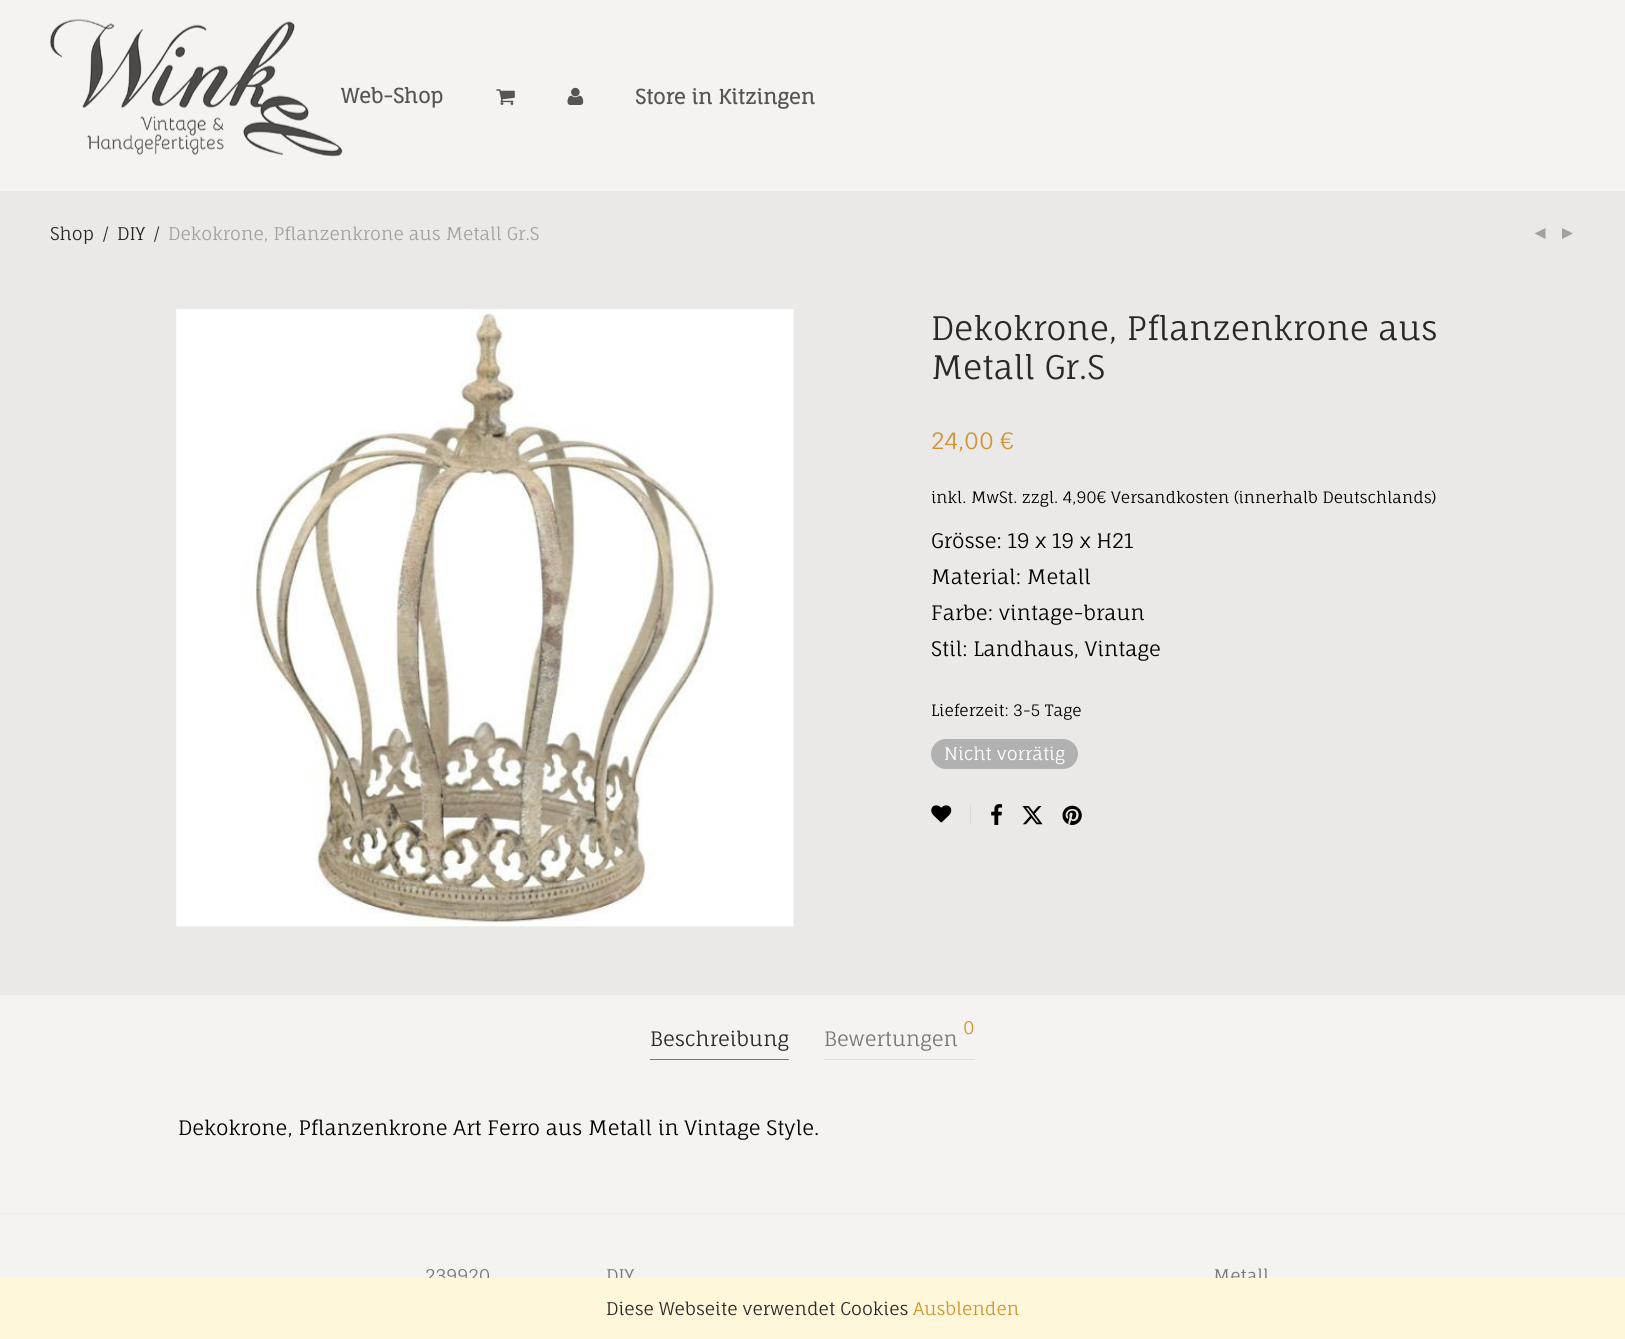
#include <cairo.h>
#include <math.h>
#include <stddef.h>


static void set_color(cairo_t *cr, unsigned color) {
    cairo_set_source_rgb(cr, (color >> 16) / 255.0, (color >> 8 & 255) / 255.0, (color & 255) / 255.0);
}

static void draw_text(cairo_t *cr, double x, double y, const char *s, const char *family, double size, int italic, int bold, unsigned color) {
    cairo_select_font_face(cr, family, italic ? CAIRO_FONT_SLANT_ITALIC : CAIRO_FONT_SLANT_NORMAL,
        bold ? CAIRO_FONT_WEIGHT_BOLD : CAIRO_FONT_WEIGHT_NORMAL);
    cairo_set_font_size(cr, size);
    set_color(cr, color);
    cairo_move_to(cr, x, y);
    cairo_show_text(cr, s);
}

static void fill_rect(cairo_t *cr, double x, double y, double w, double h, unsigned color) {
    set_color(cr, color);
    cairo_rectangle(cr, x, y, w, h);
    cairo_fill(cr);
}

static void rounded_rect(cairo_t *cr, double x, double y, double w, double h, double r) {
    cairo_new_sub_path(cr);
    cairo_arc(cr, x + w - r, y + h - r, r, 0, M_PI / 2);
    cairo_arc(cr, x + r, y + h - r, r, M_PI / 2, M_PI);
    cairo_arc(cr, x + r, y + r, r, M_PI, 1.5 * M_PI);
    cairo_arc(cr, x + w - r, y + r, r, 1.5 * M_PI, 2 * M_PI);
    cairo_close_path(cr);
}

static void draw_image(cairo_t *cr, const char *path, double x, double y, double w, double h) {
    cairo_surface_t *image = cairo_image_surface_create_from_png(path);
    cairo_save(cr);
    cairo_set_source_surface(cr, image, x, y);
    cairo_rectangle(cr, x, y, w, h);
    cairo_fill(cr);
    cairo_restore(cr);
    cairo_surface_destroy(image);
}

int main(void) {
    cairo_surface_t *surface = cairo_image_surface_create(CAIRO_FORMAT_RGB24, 1625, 1339);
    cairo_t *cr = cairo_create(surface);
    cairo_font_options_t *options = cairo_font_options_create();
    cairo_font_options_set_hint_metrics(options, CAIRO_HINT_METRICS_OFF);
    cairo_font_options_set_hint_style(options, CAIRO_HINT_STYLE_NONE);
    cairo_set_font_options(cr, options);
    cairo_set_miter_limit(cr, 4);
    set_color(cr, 0xF4F3F2);
    cairo_paint(cr);
    draw_image(cr, "assets/img1.png", 50, 18, 293, 139);
    draw_text(cr, 341, 103, "Web-Shop", "Fauna One", 20, 0, 1, 0x555555);
    draw_image(cr, "assets/img2.png", 496, 89, 19, 16);
    draw_image(cr, "assets/img3.png", 567, 87, 17, 18);
    draw_text(cr, 635, 104, "Store in Kitzingen", "Fauna One", 20, 0, 1, 0x555555);
    fill_rect(cr, 0, 191, 1625, 804, 0xEAE9E8);
    draw_text(cr, 50, 240, "Shop", "Fauna One", 17.5, 0, 0, 0x282828);
    draw_text(cr, 103, 240, "/", "Fauna One", 17.5, 0, 0, 0x282828);
    draw_text(cr, 117, 240, "DIY", "Fauna One", 17.5, 0, 0, 0x282828);
    draw_text(cr, 154, 240, "/", "Fauna One", 17.5, 0, 0, 0x282828);
    draw_text(cr, 168, 240, "Dekokrone, Pflanzenkrone aus Metall Gr.S", "Fauna One", 17.5, 0, 0, 0xA1A1A1);
    cairo_new_path(cr);
    cairo_move_to(cr, 1545.5, 228);
    cairo_line_to(cr, 1545.5, 239);
    cairo_line_to(cr, 1534.5, 233.5);
    cairo_close_path(cr);
    cairo_move_to(cr, 1562, 228);
    cairo_line_to(cr, 1562, 239);
    cairo_line_to(cr, 1573, 233.5);
    cairo_close_path(cr);
    cairo_fill(cr);
    draw_image(cr, "assets/img4.png", 176, 309, 618, 618);
    draw_text(cr, 931, 340, "Dekokrone, Pflanzenkrone aus", "Fauna One", 32.5, 0, 0, 0x282828);
    draw_text(cr, 931, 379, "Metall Gr.S", "Fauna One", 32.5, 0, 0, 0x282828);
    draw_text(cr, 931, 449, "24,00 €", "Fauna One", 22.5, 0, 0, 0xCE942F);
    draw_text(cr, 931, 503, "inkl. MwSt. zzgl. 4,90€ Versandkosten (innerhalb Deutschlands)", "Fauna One", 15.75, 0, 0, 0x000000);
    draw_text(cr, 931, 548, "Grösse: 19 x 19 x H21", "Fauna One", 20, 0, 0, 0x000000);
    draw_text(cr, 931, 584, "Material: Metall", "Fauna One", 20, 0, 0, 0x000000);
    draw_text(cr, 931, 620, "Farbe: vintage-braun", "Fauna One", 20, 0, 0, 0x000000);
    draw_text(cr, 931, 656, "Stil: Landhaus, Vintage", "Fauna One", 20, 0, 0, 0x000000);
    draw_text(cr, 931, 716, "Lieferzeit: 3-5 Tage", "Fauna One", 15.75, 0, 0, 0x000000);
    set_color(cr, 0xB1B1B1);
    rounded_rect(cr, 931, 739, 147, 30, 15);
    cairo_fill(cr);
    draw_text(cr, 944, 760, "Nicht vorrätig", "Fauna One", 17.5, 0, 0, 0xFFFFFF);
    fill_rect(cr, 970, 804, 1, 21, 0xDADADA);
    draw_image(cr, "assets/img5.png", 931, 805, 21, 18);
    draw_image(cr, "assets/img6.png", 991, 804, 12, 21);
    draw_image(cr, "assets/img7.png", 1022, 806, 21, 19);
    draw_image(cr, "assets/img8.png", 1062, 805, 20, 20);
    fill_rect(cr, 0, 995, 1625, 1, 0xEEEEEE);
    fill_rect(cr, 0, 1213, 1625, 1, 0xEEEEEE);
    fill_rect(cr, 650, 1059, 139, 1, 0x777777);
    draw_text(cr, 650, 1046, "Beschreibung", "Fauna One", 20, 0, 0, 0x282828);
    fill_rect(cr, 824, 1059, 151, 1, 0xE0E0E0);
    draw_text(cr, 963, 1034, "0", "Fauna One", 17.5, 0, 0, 0xCE942F);
    draw_text(cr, 824, 1046, "Bewertungen", "Fauna One", 20, 0, 0, 0x777777);
    draw_text(cr, 178, 1135, "Dekokrone, Pflanzenkrone Art Ferro aus Metall in Vintage Style.", "Fauna One", 20, 0, 0, 0x000000);
    draw_text(cr, 425, 1282, "239920", "Fauna One", 17.5, 0, 0, 0x777777);
    draw_text(cr, 606, 1282, "DIY", "Fauna One", 17.5, 0, 0, 0x777777);
    draw_text(cr, 1213, 1282, "Metall", "Fauna One", 17.5, 0, 0, 0x777777);
    fill_rect(cr, 0, 1278, 1625, 61, 0xFFF7DA);
    draw_text(cr, 606, 1315, "Diese Webseite verwendet Cookies", "Fauna One", 17.5, 0, 0, 0x282828);
    draw_text(cr, 913, 1315, "Ausblenden", "Fauna One", 17.5, 0, 0, 0xCE942F);
    cairo_surface_write_to_png(surface, "output.png");
    cairo_font_options_destroy(options);
    cairo_destroy(cr);
    cairo_surface_destroy(surface);
    return 0;
}
